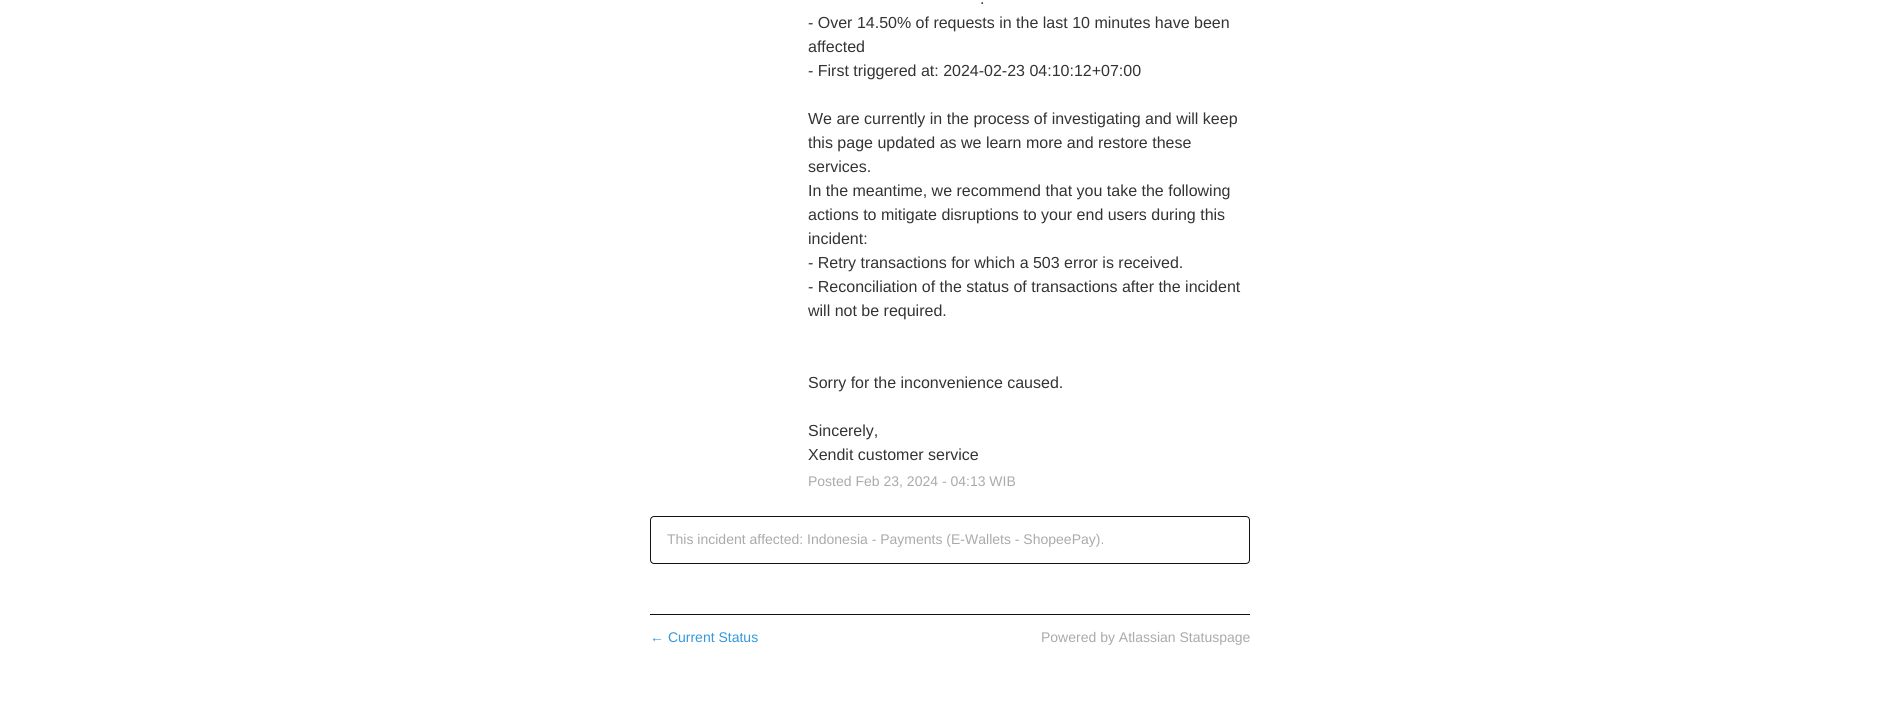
#include <cairo.h>
#include <math.h>
#include <stddef.h>


static void set_color(cairo_t *cr, unsigned color) {
    cairo_set_source_rgb(cr, (color >> 16) / 255.0, (color >> 8 & 255) / 255.0, (color & 255) / 255.0);
}

static void draw_text(cairo_t *cr, double x, double y, const char *s, const char *family, double size, int italic, int bold, unsigned color) {
    cairo_select_font_face(cr, family, italic ? CAIRO_FONT_SLANT_ITALIC : CAIRO_FONT_SLANT_NORMAL,
        bold ? CAIRO_FONT_WEIGHT_BOLD : CAIRO_FONT_WEIGHT_NORMAL);
    cairo_set_font_size(cr, size);
    set_color(cr, color);
    cairo_move_to(cr, x, y);
    cairo_show_text(cr, s);
}

static void fill_rect(cairo_t *cr, double x, double y, double w, double h, unsigned color) {
    set_color(cr, color);
    cairo_rectangle(cr, x, y, w, h);
    cairo_fill(cr);
}

static void rounded_rect(cairo_t *cr, double x, double y, double w, double h, double r) {
    cairo_new_sub_path(cr);
    cairo_arc(cr, x + w - r, y + h - r, r, 0, M_PI / 2);
    cairo_arc(cr, x + r, y + h - r, r, M_PI / 2, M_PI);
    cairo_arc(cr, x + r, y + r, r, M_PI, 1.5 * M_PI);
    cairo_arc(cr, x + w - r, y + r, r, 1.5 * M_PI, 2 * M_PI);
    cairo_close_path(cr);
}

int main(void) {
    cairo_surface_t *surface = cairo_image_surface_create(CAIRO_FORMAT_RGB24, 1900, 718);
    cairo_t *cr = cairo_create(surface);
    cairo_font_options_t *options = cairo_font_options_create();
    cairo_font_options_set_hint_metrics(options, CAIRO_HINT_METRICS_OFF);
    cairo_font_options_set_hint_style(options, CAIRO_HINT_STYLE_NONE);
    cairo_set_font_options(cr, options);
    cairo_set_miter_limit(cr, 4);
    set_color(cr, 0xFFFFFF);
    cairo_paint(cr);
    draw_text(cr, 980, 4, ".", "Liberation Sans", 16, 0, 0, 0x333333);
    draw_text(cr, 808, 28, "- Over 14.50% of requests in the last 10 minutes have been", "Liberation Sans", 16, 0, 0, 0x333333);
    draw_text(cr, 808, 52, "affected", "Liberation Sans", 16, 0, 0, 0x333333);
    draw_text(cr, 808, 76, "- First triggered at: 2024-02-23 04:10:12+07:00", "Liberation Sans", 16, 0, 0, 0x333333);
    draw_text(cr, 808, 124, "We are currently in the process of investigating and will keep", "Liberation Sans", 16, 0, 0, 0x333333);
    draw_text(cr, 808, 148, "this page updated as we learn more and restore these", "Liberation Sans", 16, 0, 0, 0x333333);
    draw_text(cr, 808, 172, "services.", "Liberation Sans", 16, 0, 0, 0x333333);
    draw_text(cr, 808, 196, "In the meantime, we recommend that you take the following", "Liberation Sans", 16, 0, 0, 0x333333);
    draw_text(cr, 808, 220, "actions to mitigate disruptions to your end users during this", "Liberation Sans", 16, 0, 0, 0x333333);
    draw_text(cr, 808, 244, "incident:", "Liberation Sans", 16, 0, 0, 0x333333);
    draw_text(cr, 808, 268, "- Retry transactions for which a 503 error is received.", "Liberation Sans", 16, 0, 0, 0x333333);
    draw_text(cr, 808, 292, "- Reconciliation of the status of transactions after the incident", "Liberation Sans", 16, 0, 0, 0x333333);
    draw_text(cr, 808, 316, "will not be required.", "Liberation Sans", 16, 0, 0, 0x333333);
    draw_text(cr, 808, 388, "Sorry for the inconvenience caused.", "Liberation Sans", 16, 0, 0, 0x333333);
    draw_text(cr, 808, 436, "Sincerely,", "Liberation Sans", 16, 0, 0, 0x333333);
    draw_text(cr, 808, 460, "Xendit customer service", "Liberation Sans", 16, 0, 0, 0x333333);
    draw_text(cr, 808, 486, "Posted Feb 23, 2024 - 04:13 WIB", "Liberation Sans", 14, 0, 0, 0xAAAAAA);
    rounded_rect(cr, 650.5, 516.5, 599, 47, 3.5);
    set_color(cr, 0x111111);
    cairo_set_line_width(cr, 1);
    cairo_stroke(cr);
    draw_text(cr, 667, 544, "This incident affected: Indonesia - Payments (E-Wallets - ShopeePay).", "Liberation Sans", 14, 0, 0, 0xAAAAAA);
    fill_rect(cr, 650, 614, 600, 1, 0x111111);
    draw_text(cr, 650, 642, "← Current Status", "Liberation Sans", 14, 0, 0, 0x3498DB);
    draw_text(cr, 1041, 642, "Powered by Atlassian Statuspage", "Liberation Sans", 14, 0, 0, 0xAAAAAA);
    cairo_surface_write_to_png(surface, "output.png");
    cairo_font_options_destroy(options);
    cairo_destroy(cr);
    cairo_surface_destroy(surface);
    return 0;
}
